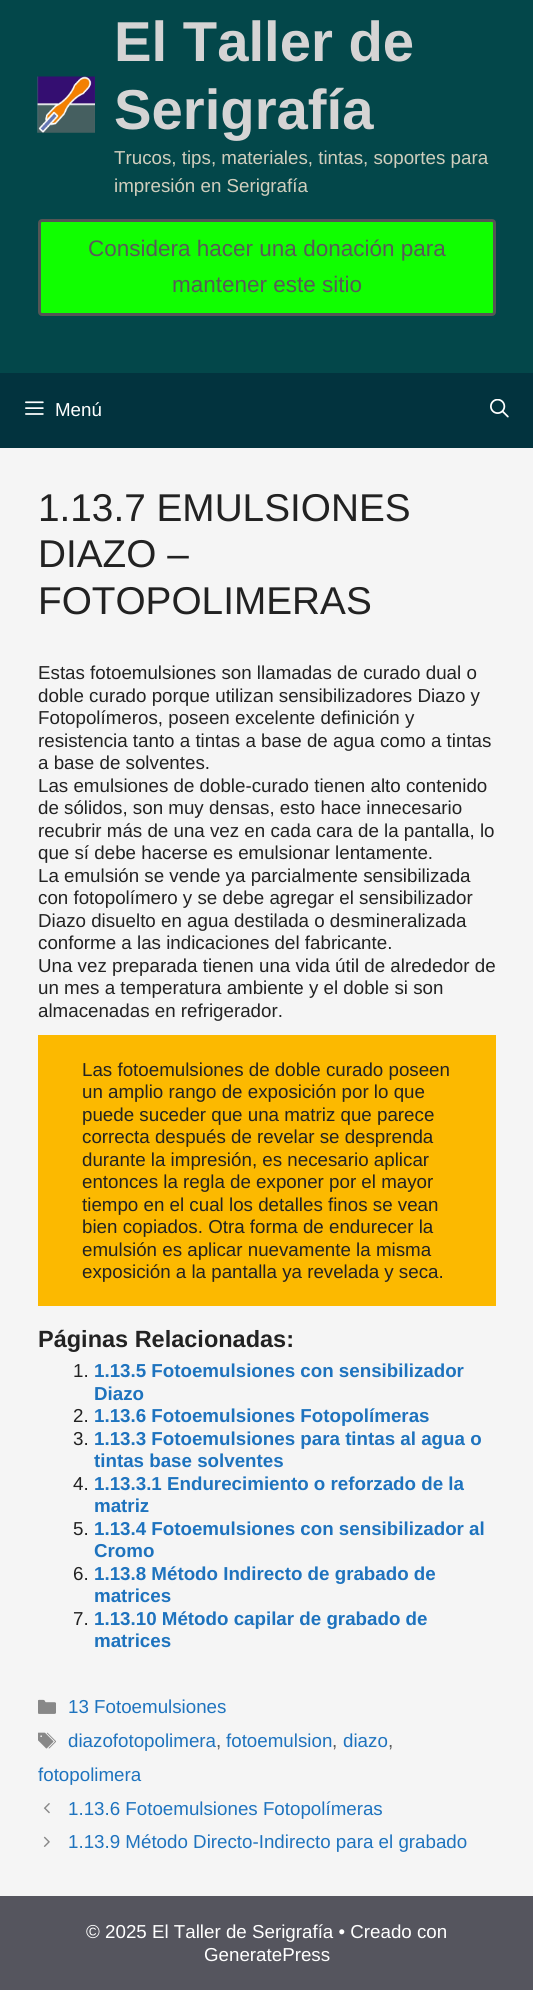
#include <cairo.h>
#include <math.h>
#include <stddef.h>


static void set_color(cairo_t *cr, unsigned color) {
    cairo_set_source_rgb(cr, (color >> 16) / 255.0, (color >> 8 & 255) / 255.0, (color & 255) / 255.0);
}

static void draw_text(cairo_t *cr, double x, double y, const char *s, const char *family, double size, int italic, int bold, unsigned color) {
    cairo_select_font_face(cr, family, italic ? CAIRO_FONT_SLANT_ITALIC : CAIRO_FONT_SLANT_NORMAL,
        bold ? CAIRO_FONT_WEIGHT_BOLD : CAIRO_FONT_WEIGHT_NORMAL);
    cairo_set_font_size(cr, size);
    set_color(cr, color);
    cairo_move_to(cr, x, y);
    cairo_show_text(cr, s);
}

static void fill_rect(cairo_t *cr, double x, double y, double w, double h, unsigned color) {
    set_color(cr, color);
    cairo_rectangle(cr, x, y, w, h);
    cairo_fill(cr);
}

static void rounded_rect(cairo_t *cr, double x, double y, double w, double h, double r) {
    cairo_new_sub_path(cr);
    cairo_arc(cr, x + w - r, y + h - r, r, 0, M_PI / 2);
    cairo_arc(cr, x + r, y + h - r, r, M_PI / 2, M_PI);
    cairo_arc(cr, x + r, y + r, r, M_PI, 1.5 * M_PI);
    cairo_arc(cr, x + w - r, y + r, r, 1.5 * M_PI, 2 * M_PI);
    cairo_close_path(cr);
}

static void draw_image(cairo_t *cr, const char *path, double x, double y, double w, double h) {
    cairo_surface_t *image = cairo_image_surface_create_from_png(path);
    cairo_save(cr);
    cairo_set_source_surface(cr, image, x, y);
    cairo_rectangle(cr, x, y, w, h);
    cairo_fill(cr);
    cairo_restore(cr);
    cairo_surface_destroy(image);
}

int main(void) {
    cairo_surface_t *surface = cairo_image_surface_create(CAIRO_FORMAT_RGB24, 533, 1990);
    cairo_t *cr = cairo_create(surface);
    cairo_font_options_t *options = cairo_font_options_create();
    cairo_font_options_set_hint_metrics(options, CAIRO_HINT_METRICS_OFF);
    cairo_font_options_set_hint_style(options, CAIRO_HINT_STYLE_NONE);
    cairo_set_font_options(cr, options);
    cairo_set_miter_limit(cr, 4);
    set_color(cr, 0x02333E);
    cairo_paint(cr);
    fill_rect(cr, 0, 0, 533, 373, 0x03474A);
    draw_image(cr, "assets/img1.png", 37, 76, 58, 57);
    draw_text(cr, 114, 61, "El Taller de", "Liberation Sans", 56.25, 0, 1, 0xD5D4D4);
    draw_text(cr, 114, 129, "Serigrafía", "Liberation Sans", 56.25, 0, 1, 0xD5D4D4);
    draw_text(cr, 114, 164, "Trucos, tips, materiales, tintas, soportes para", "Liberation Sans", 18.75, 0, 0, 0xD0CEBD);
    draw_text(cr, 114, 192, "impresión en Serigrafía", "Liberation Sans", 18.75, 0, 0, 0xD0CEBD);
    set_color(cr, 0x10FF00);
    rounded_rect(cr, 39.5, 220.5, 455, 94, 2.5);
    cairo_fill_preserve(cr);
    set_color(cr, 0x555555);
    cairo_set_line_width(cr, 3);
    cairo_stroke(cr);
    draw_text(cr, 88, 256, "Considera hacer una donación para", "Liberation Sans", 22.5, 0, 0, 0x595959);
    draw_text(cr, 172, 292, "mantener este sitio", "Liberation Sans", 22.5, 0, 0, 0x595959);
    draw_image(cr, "assets/img2.png", 25, 401, 19, 14);
    draw_text(cr, 55, 416, "Menú", "Liberation Sans", 18.75, 0, 0, 0xFFFFFF);
    draw_image(cr, "assets/img3.png", 490, 399, 19, 19);
    fill_rect(cr, 0, 448, 533, 1448, 0xF5F5F5);
    draw_text(cr, 38, 521, "1.13.7 EMULSIONES", "Liberation Sans", 38.75, 0, 0, 0x222222);
    draw_text(cr, 38, 567, "DIAZO –", "Liberation Sans", 38.75, 0, 0, 0x222222);
    draw_text(cr, 38, 614, "FOTOPOLIMERAS", "Liberation Sans", 38.75, 0, 0, 0x222222);
    draw_text(cr, 38, 679, "Estas fotoemulsiones son llamadas de curado dual o", "Liberation Sans", 18.75, 0, 0, 0x222222);
    draw_text(cr, 38, 702, "doble curado porque utilizan sensibilizadores Diazo y", "Liberation Sans", 18.75, 0, 0, 0x222222);
    draw_text(cr, 38, 724, "Fotopolímeros, poseen excelente definición y", "Liberation Sans", 18.75, 0, 0, 0x222222);
    draw_text(cr, 38, 747, "resistencia tanto a tintas a base de agua como a tintas", "Liberation Sans", 18.75, 0, 0, 0x222222);
    draw_text(cr, 38, 769, "a base de solventes.", "Liberation Sans", 18.75, 0, 0, 0x222222);
    draw_text(cr, 38, 792, "Las emulsiones de doble-curado tienen alto contenido", "Liberation Sans", 18.75, 0, 0, 0x222222);
    draw_text(cr, 38, 814, "de sólidos, son muy densas, esto hace innecesario", "Liberation Sans", 18.75, 0, 0, 0x222222);
    draw_text(cr, 38, 837, "recubrir más de una vez en cada cara de la pantalla, lo", "Liberation Sans", 18.75, 0, 0, 0x222222);
    draw_text(cr, 38, 859, "que sí debe hacerse es emulsionar lentamente.", "Liberation Sans", 18.75, 0, 0, 0x222222);
    draw_text(cr, 38, 882, "La emulsión se vende ya parcialmente sensibilizada", "Liberation Sans", 18.75, 0, 0, 0x222222);
    draw_text(cr, 38, 904, "con fotopolímero y se debe agregar el sensibilizador", "Liberation Sans", 18.75, 0, 0, 0x222222);
    draw_text(cr, 38, 927, "Diazo disuelto en agua destilada o desmineralizada", "Liberation Sans", 18.75, 0, 0, 0x222222);
    draw_text(cr, 38, 949, "conforme a las indicaciones del fabricante.", "Liberation Sans", 18.75, 0, 0, 0x222222);
    draw_text(cr, 38, 972, "Una vez preparada tienen una vida útil de alrededor de", "Liberation Sans", 18.75, 0, 0, 0x222222);
    draw_text(cr, 38, 994, "un mes a temperatura ambiente y el doble si son", "Liberation Sans", 18.75, 0, 0, 0x222222);
    draw_text(cr, 38, 1017, "almacenadas en refrigerador.", "Liberation Sans", 18.75, 0, 0, 0x222222);
    fill_rect(cr, 38, 1035, 458, 271, 0xFCB900);
    draw_text(cr, 82, 1076, "Las fotoemulsiones de doble curado poseen", "Liberation Sans", 18.75, 0, 0, 0x222222);
    draw_text(cr, 82, 1098, "un amplio rango de exposición por lo que", "Liberation Sans", 18.75, 0, 0, 0x222222);
    draw_text(cr, 82, 1121, "puede suceder que una matriz que parece", "Liberation Sans", 18.75, 0, 0, 0x222222);
    draw_text(cr, 82, 1143, "correcta después de revelar se desprenda", "Liberation Sans", 18.75, 0, 0, 0x222222);
    draw_text(cr, 82, 1166, "durante la impresión, es necesario aplicar", "Liberation Sans", 18.75, 0, 0, 0x222222);
    draw_text(cr, 82, 1188, "entonces la regla de exponer por el mayor", "Liberation Sans", 18.75, 0, 0, 0x222222);
    draw_text(cr, 82, 1211, "tiempo en el cual los detalles finos se vean", "Liberation Sans", 18.75, 0, 0, 0x222222);
    draw_text(cr, 82, 1233, "bien copiados. Otra forma de endurecer la", "Liberation Sans", 18.75, 0, 0, 0x222222);
    draw_text(cr, 82, 1256, "emulsión es aplicar nuevamente la misma", "Liberation Sans", 18.75, 0, 0, 0x222222);
    draw_text(cr, 82, 1278, "exposición a la pantalla ya revelada y seca.", "Liberation Sans", 18.75, 0, 0, 0x222222);
    draw_text(cr, 38, 1347, "Páginas Relacionadas:", "Liberation Sans", 23.5, 0, 1, 0x222222);
    draw_text(cr, 73, 1377, "1.", "Liberation Sans", 18.75, 0, 0, 0x222222);
    draw_text(cr, 94, 1377, "1.13.5 Fotoemulsiones con sensibilizador", "Liberation Sans", 18.75, 0, 1, 0x1E73BE);
    draw_text(cr, 94, 1400, "Diazo", "Liberation Sans", 18.75, 0, 1, 0x1E73BE);
    draw_text(cr, 73, 1422, "2.", "Liberation Sans", 18.75, 0, 0, 0x222222);
    draw_text(cr, 94, 1422, "1.13.6 Fotoemulsiones Fotopolímeras", "Liberation Sans", 18.75, 0, 1, 0x1E73BE);
    draw_text(cr, 73, 1445, "3.", "Liberation Sans", 18.75, 0, 0, 0x222222);
    draw_text(cr, 94, 1445, "1.13.3 Fotoemulsiones para tintas al agua o", "Liberation Sans", 18.75, 0, 1, 0x1E73BE);
    draw_text(cr, 94, 1467, "tintas base solventes", "Liberation Sans", 18.75, 0, 1, 0x1E73BE);
    draw_text(cr, 73, 1490, "4.", "Liberation Sans", 18.75, 0, 0, 0x222222);
    draw_text(cr, 94, 1490, "1.13.3.1 Endurecimiento o reforzado de la", "Liberation Sans", 18.75, 0, 1, 0x1E73BE);
    draw_text(cr, 94, 1512, "matriz", "Liberation Sans", 18.75, 0, 1, 0x1E73BE);
    draw_text(cr, 73, 1535, "5.", "Liberation Sans", 18.75, 0, 0, 0x222222);
    draw_text(cr, 94, 1535, "1.13.4 Fotoemulsiones con sensibilizador al", "Liberation Sans", 18.75, 0, 1, 0x1E73BE);
    draw_text(cr, 94, 1557, "Cromo", "Liberation Sans", 18.75, 0, 1, 0x1E73BE);
    draw_text(cr, 73, 1580, "6.", "Liberation Sans", 18.75, 0, 0, 0x222222);
    draw_text(cr, 94, 1580, "1.13.8 Método Indirecto de grabado de", "Liberation Sans", 18.75, 0, 1, 0x1E73BE);
    draw_text(cr, 94, 1602, "matrices", "Liberation Sans", 18.75, 0, 1, 0x1E73BE);
    draw_text(cr, 73, 1625, "7.", "Liberation Sans", 18.75, 0, 0, 0x222222);
    draw_text(cr, 94, 1625, "1.13.10 Método capilar de grabado de", "Liberation Sans", 18.75, 0, 1, 0x1E73BE);
    draw_text(cr, 94, 1647, "matrices", "Liberation Sans", 18.75, 0, 1, 0x1E73BE);
    draw_image(cr, "assets/img4.png", 38, 1699, 18, 15);
    draw_text(cr, 68, 1713, "13 Fotoemulsiones", "Liberation Sans", 18.75, 0, 0, 0x1E73BE);
    draw_image(cr, "assets/img5.png", 38, 1732, 18, 17);
    draw_text(cr, 68, 1747, "diazofotopolimera", "Liberation Sans", 18.75, 0, 0, 0x1E73BE);
    draw_text(cr, 216, 1747, ",", "Liberation Sans", 18.75, 0, 0, 0x595959);
    draw_text(cr, 226, 1747, "fotoemulsion", "Liberation Sans", 18.75, 0, 0, 0x1E73BE);
    draw_text(cr, 332, 1747, ",", "Liberation Sans", 18.75, 0, 0, 0x595959);
    draw_text(cr, 343, 1747, "diazo", "Liberation Sans", 18.75, 0, 0, 0x1E73BE);
    draw_text(cr, 388, 1747, ",", "Liberation Sans", 18.75, 0, 0, 0x595959);
    draw_text(cr, 38, 1781, "fotopolimera", "Liberation Sans", 18.75, 0, 0, 0x1E73BE);
    draw_image(cr, "assets/img6.png", 43, 1803, 7, 11);
    draw_text(cr, 68, 1815, "1.13.6 Fotoemulsiones Fotopolímeras", "Liberation Sans", 18.75, 0, 0, 0x1E73BE);
    draw_image(cr, "assets/img7.png", 43, 1836, 7, 11);
    draw_text(cr, 68, 1848, "1.13.9 Método Directo-Indirecto para el grabado", "Liberation Sans", 18.75, 0, 0, 0x1E73BE);
    fill_rect(cr, 0, 1896, 533, 94, 0x55555E);
    draw_text(cr, 86, 1938, "© 2025 El Taller de Serigrafía • Creado con", "Liberation Sans", 18.75, 0, 0, 0xFFFFFF);
    draw_text(cr, 204, 1961, "GeneratePress", "Liberation Sans", 18.75, 0, 0, 0xFFFFFF);
    cairo_surface_write_to_png(surface, "output.png");
    cairo_font_options_destroy(options);
    cairo_destroy(cr);
    cairo_surface_destroy(surface);
    return 0;
}
